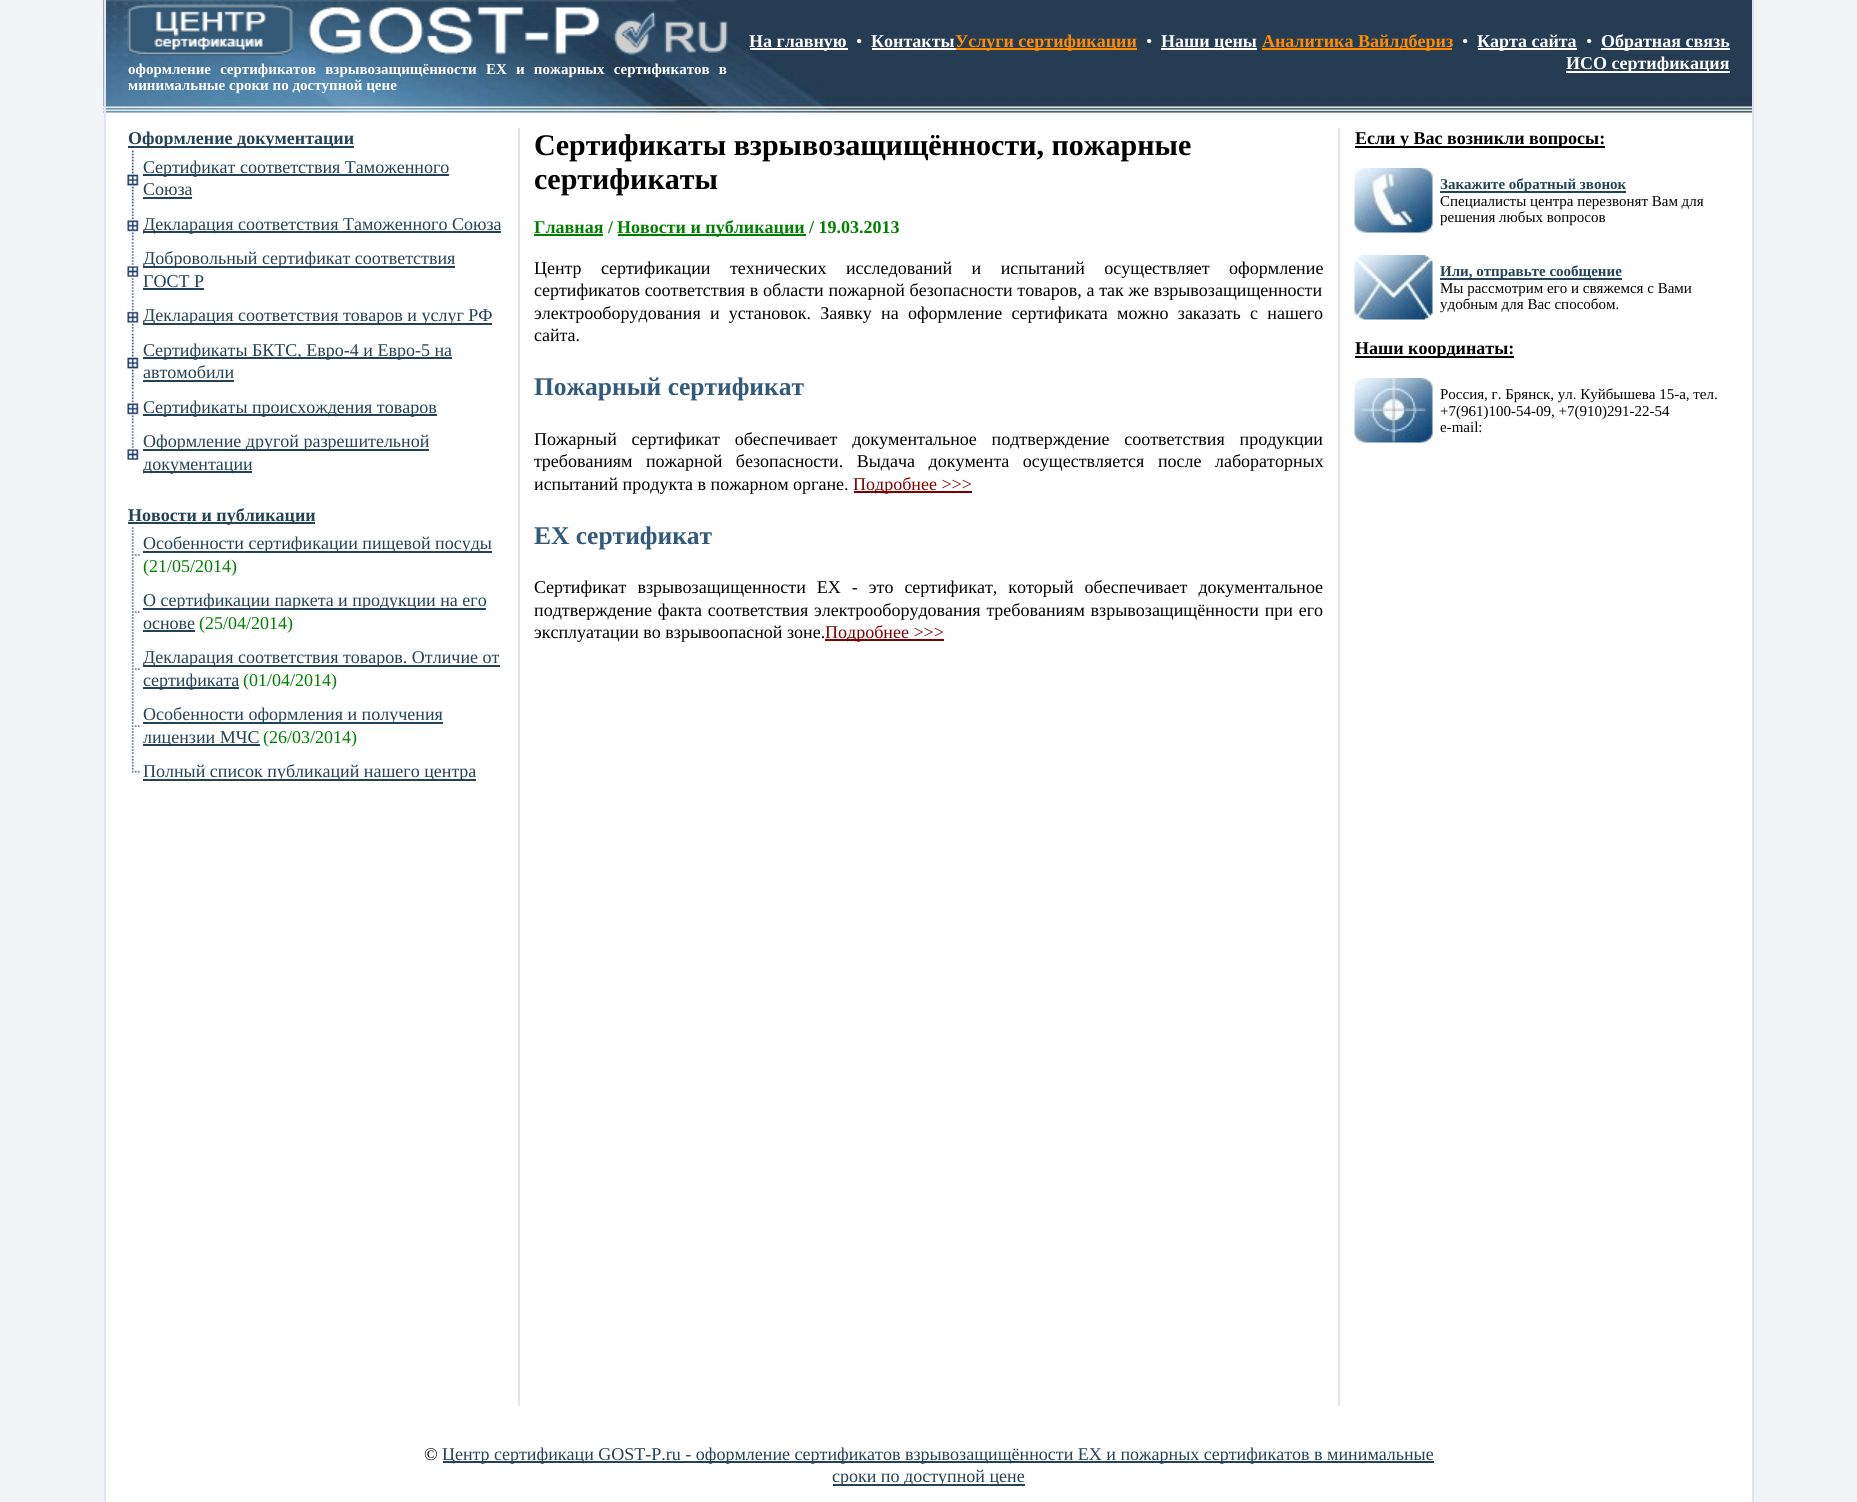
#include <cairo.h>
#include <math.h>
#include <stddef.h>


static void set_color(cairo_t *cr, unsigned color) {
    cairo_set_source_rgb(cr, (color >> 16) / 255.0, (color >> 8 & 255) / 255.0, (color & 255) / 255.0);
}

static void draw_text(cairo_t *cr, double x, double y, const char *s, const char *family, double size, int italic, int bold, unsigned color) {
    cairo_select_font_face(cr, family, italic ? CAIRO_FONT_SLANT_ITALIC : CAIRO_FONT_SLANT_NORMAL,
        bold ? CAIRO_FONT_WEIGHT_BOLD : CAIRO_FONT_WEIGHT_NORMAL);
    cairo_set_font_size(cr, size);
    set_color(cr, color);
    cairo_move_to(cr, x, y);
    cairo_show_text(cr, s);
}

static void draw_spaced(cairo_t *cr, double x, double y, const char *s, double letter, double word) {
    cairo_move_to(cr, x, y);
    while (*s) {
        char ch[5] = {0};
        int n = 0;
        do ch[n++] = *s++; while ((*s & 0xC0) == 0x80);
        cairo_show_text(cr, ch);
        cairo_rel_move_to(cr, letter + word * (*ch == ' '), 0);
    }
}

static void fill_rect(cairo_t *cr, double x, double y, double w, double h, unsigned color) {
    set_color(cr, color);
    cairo_rectangle(cr, x, y, w, h);
    cairo_fill(cr);
}

static void draw_image(cairo_t *cr, const char *path, double x, double y, double w, double h) {
    cairo_surface_t *image = cairo_image_surface_create_from_png(path);
    cairo_save(cr);
    cairo_set_source_surface(cr, image, x, y);
    cairo_rectangle(cr, x, y, w, h);
    cairo_fill(cr);
    cairo_restore(cr);
    cairo_surface_destroy(image);
}

int main(void) {
    cairo_surface_t *surface = cairo_image_surface_create(CAIRO_FORMAT_RGB24, 1857, 1502);
    cairo_t *cr = cairo_create(surface);
    cairo_font_options_t *options = cairo_font_options_create();
    cairo_font_options_set_hint_metrics(options, CAIRO_HINT_METRICS_OFF);
    cairo_font_options_set_hint_style(options, CAIRO_HINT_STYLE_NONE);
    cairo_set_font_options(cr, options);
    cairo_set_miter_limit(cr, 4);
    set_color(cr, 0xF2F4F7);
    cairo_paint(cr);
    fill_rect(cr, 106, 112, 1646, 1390, 0xFFFFFF);
    draw_image(cr, "assets/img1.png", 103, 0, 1649, 113);
    fill_rect(cr, 1752, 0, 2, 1502, 0xE1E4EE);
    fill_rect(cr, 104, 0, 2, 1502, 0xE1E4EE);
    draw_image(cr, "assets/img2.png", 127, 4, 601, 52);
    fill_rect(cr, 750, 48, 98, 2, 0xFFFFFF);
    draw_text(cr, 749, 47, "На главную", "Liberation Serif", 18, 0, 1, 0xFFFFFF);
    draw_text(cr, 856, 47, "•", "Liberation Serif", 18, 0, 0, 0xFFFFFF);
    draw_text(cr, 871, 47, "Контакты", "Liberation Serif", 18, 0, 1, 0xFFFFFF);
    fill_rect(cr, 872, 48, 84, 2, 0xFFFFFF);
    fill_rect(cr, 956, 48, 181, 2, 0xFF8C00);
    draw_text(cr, 955, 47, "Услуги сертификации", "Liberation Serif", 18, 0, 1, 0xFF8C00);
    draw_text(cr, 1146, 47, "•", "Liberation Serif", 18, 0, 0, 0xFFFFFF);
    fill_rect(cr, 1161, 48, 96, 2, 0xFFFFFF);
    draw_text(cr, 1161, 47, "Наши цены", "Liberation Serif", 18, 0, 1, 0xFFFFFF);
    fill_rect(cr, 1262, 48, 190, 2, 0xFF8C00);
    draw_text(cr, 1262, 47, "Аналитика Вайлдбериз", "Liberation Serif", 18, 0, 1, 0xFF8C00);
    draw_text(cr, 1462, 47, "•", "Liberation Serif", 18, 0, 0, 0xFFFFFF);
    fill_rect(cr, 1478, 48, 99, 2, 0xFFFFFF);
    draw_text(cr, 1477, 47, "Карта сайта", "Liberation Serif", 18, 0, 1, 0xFFFFFF);
    draw_text(cr, 1586, 47, "•", "Liberation Serif", 18, 0, 0, 0xFFFFFF);
    fill_rect(cr, 1601, 48, 129, 2, 0xFFFFFF);
    draw_text(cr, 1601, 47, "Обратная связь", "Liberation Serif", 18, 0, 1, 0xFFFFFF);
    fill_rect(cr, 1566, 71, 164, 2, 0xFFFFFF);
    draw_text(cr, 1566, 69, "ИСО сертификация", "Liberation Serif", 18, 0, 1, 0xFFFFFF);
    cairo_set_font_size(cr, 15);
    draw_spaced(cr, 128, 74, "оформление сертификатов взрывозащищённости EX и пожарных сертификатов в", 0, 5.5);
    draw_text(cr, 128, 90, "минимальные сроки по доступной цене", "Liberation Serif", 15, 0, 1, 0xFFFFFF);
    fill_rect(cr, 518, 128, 2, 1278, 0xE1E4EE);
    fill_rect(cr, 128, 146, 226, 2, 0x234358);
    draw_text(cr, 128, 144, "Оформление документации", "Liberation Serif", 18, 0, 1, 0x234358);
    draw_image(cr, "assets/img3.png", 127, 150, 12, 57);
    fill_rect(cr, 143, 174, 306, 2, 0x234358);
    draw_text(cr, 143, 173, "Сертификат соответствия Таможенного", "Liberation Serif", 18, 0, 0, 0x234358);
    draw_text(cr, 143, 195, "Союза", "Liberation Serif", 18, 0, 0, 0x234358);
    fill_rect(cr, 143, 197, 49, 2, 0x234358);
    draw_image(cr, "assets/img4.png", 127, 208, 12, 33);
    fill_rect(cr, 143, 231, 358, 2, 0x234358);
    draw_text(cr, 143, 230, "Декларация соответствия Таможенного Союза", "Liberation Serif", 18, 0, 0, 0x234358);
    draw_image(cr, "assets/img5.png", 127, 242, 12, 56);
    fill_rect(cr, 143, 266, 312, 2, 0x234358);
    draw_text(cr, 143, 264, "Добровольный сертификат соответствия", "Liberation Serif", 18, 0, 0, 0x234358);
    draw_text(cr, 143, 287, "ГОСТ Р", "Liberation Serif", 18, 0, 0, 0x234358);
    fill_rect(cr, 143, 288, 61, 2, 0x234358);
    draw_image(cr, "assets/img6.png", 127, 299, 12, 33);
    fill_rect(cr, 143, 323, 349, 2, 0x234358);
    draw_text(cr, 143, 321, "Декларация соответствия товаров и услуг РФ", "Liberation Serif", 18, 0, 0, 0x234358);
    draw_image(cr, "assets/img3.png", 127, 333, 12, 57);
    fill_rect(cr, 143, 357, 309, 2, 0x234358);
    draw_text(cr, 143, 356, "Сертификаты БКТС, Евро-4 и Евро-5 на", "Liberation Serif", 18, 0, 0, 0x234358);
    draw_text(cr, 143, 378, "автомобили", "Liberation Serif", 18, 0, 0, 0x234358);
    fill_rect(cr, 143, 380, 91, 2, 0x234358);
    draw_image(cr, "assets/img4.png", 127, 391, 12, 33);
    fill_rect(cr, 143, 414, 294, 2, 0x234358);
    draw_text(cr, 143, 413, "Сертификаты происхождения товаров", "Liberation Serif", 18, 0, 0, 0x234358);
    draw_image(cr, "assets/img7.png", 127, 425, 12, 35);
    fill_rect(cr, 143, 449, 286, 2, 0x234358);
    draw_text(cr, 143, 447, "Оформление другой разрешительной", "Liberation Serif", 18, 0, 0, 0x234358);
    fill_rect(cr, 143, 471, 109, 2, 0x234358);
    draw_text(cr, 143, 470, "документации", "Liberation Serif", 18, 0, 0, 0x234358);
    fill_rect(cr, 128, 522, 187, 2, 0x234358);
    draw_text(cr, 128, 521, "Новости и публикации", "Liberation Serif", 18, 0, 1, 0x234358);
    draw_image(cr, "assets/img8.png", 131, 527, 9, 56);
    fill_rect(cr, 143, 551, 349, 2, 0x234358);
    draw_text(cr, 143, 549, "Особенности сертификации пищевой посуды", "Liberation Serif", 18, 0, 0, 0x234358);
    draw_text(cr, 143, 572, "(21/05/2014)", "Liberation Serif", 18, 0, 0, 0x008000);
    draw_image(cr, "assets/img8.png", 131, 584, 9, 56);
    fill_rect(cr, 143, 608, 343, 2, 0x234358);
    draw_text(cr, 143, 606, "О сертификации паркета и продукции на его", "Liberation Serif", 18, 0, 0, 0x234358);
    draw_text(cr, 143, 629, "основе", "Liberation Serif", 18, 0, 0, 0x234358);
    fill_rect(cr, 143, 630, 52, 2, 0x234358);
    draw_text(cr, 199, 629, "(25/04/2014)", "Liberation Serif", 18, 0, 0, 0x008000);
    draw_image(cr, "assets/img8.png", 131, 641, 9, 56);
    fill_rect(cr, 143, 665, 357, 2, 0x234358);
    draw_text(cr, 143, 663, "Декларация соответствия товаров. Отличие от", "Liberation Serif", 18, 0, 0, 0x234358);
    fill_rect(cr, 143, 687, 96, 2, 0x234358);
    draw_text(cr, 143, 686, "сертификата", "Liberation Serif", 18, 0, 0, 0x234358);
    draw_text(cr, 243, 686, "(01/04/2014)", "Liberation Serif", 18, 0, 0, 0x008000);
    draw_image(cr, "assets/img8.png", 131, 698, 9, 56);
    fill_rect(cr, 143, 722, 300, 2, 0x234358);
    draw_text(cr, 143, 720, "Особенности оформления и получения", "Liberation Serif", 18, 0, 0, 0x234358);
    fill_rect(cr, 143, 744, 117, 2, 0x234358);
    draw_text(cr, 143, 743, "лицензии МЧС", "Liberation Serif", 18, 0, 0, 0x234358);
    draw_text(cr, 263, 743, "(26/03/2014)", "Liberation Serif", 18, 0, 0, 0x008000);
    draw_image(cr, "assets/img9.png", 131, 755, 9, 18);
    fill_rect(cr, 143, 779, 333, 2, 0x234358);
    draw_text(cr, 143, 777, "Полный список публикаций нашего центра", "Liberation Serif", 18, 0, 0, 0x234358);
    draw_text(cr, 534, 155, "Сертификаты взрывозащищённости, пожарные", "Liberation Serif", 30, 0, 1, 0x000000);
    draw_text(cr, 534, 189, "сертификаты", "Liberation Serif", 30, 0, 1, 0x000000);
    draw_text(cr, 534, 233, "Главная /", "Liberation Serif", 18, 0, 1, 0x008000);
    fill_rect(cr, 534, 234, 69, 2, 0x008000);
    fill_rect(cr, 618, 234, 188, 2, 0x008000);
    draw_text(cr, 617, 233, "Новости и публикации / 19.03.2013", "Liberation Serif", 18, 0, 1, 0x008000);
    cairo_select_font_face(cr, "Liberation Serif", CAIRO_FONT_SLANT_NORMAL, CAIRO_FONT_WEIGHT_NORMAL);
    set_color(cr, 0x000000);
    draw_spaced(cr, 534, 274, "Центр сертификации технических исследований и испытаний осуществляет оформление", 0, 15);
    draw_spaced(cr, 534, 296, "сертификатов соответствия в области пожарной безопасности товаров, а так же взрывозащищенности", 0, 0.25);
    draw_spaced(cr, 534, 319, "электрооборудования и установок. Заявку на оформление сертификата можно заказать с нашего", 0, 4.75);
    draw_text(cr, 534, 341, "сайта.", "Liberation Serif", 18, 0, 0, 0x000000);
    draw_text(cr, 534, 395, "Пожарный сертификат", "Liberation Serif", 25.5, 0, 1, 0x325B7B);
    cairo_select_font_face(cr, "Liberation Serif", CAIRO_FONT_SLANT_NORMAL, CAIRO_FONT_WEIGHT_NORMAL);
    cairo_set_font_size(cr, 18);
    set_color(cr, 0x000000);
    draw_spaced(cr, 534, 445, "Пожарный сертификат обеспечивает документальное подтверждение соответствия продукции", 0, 10.25);
    draw_spaced(cr, 534, 467, "требованиям пожарной безопасности. Выдача документа осуществляется после лабораторных", 0, 9);
    draw_text(cr, 534, 490, "испытаний продукта в пожарном органе.", "Liberation Serif", 18, 0, 0, 0x000000);
    fill_rect(cr, 854, 491, 118, 2, 0x800000);
    draw_text(cr, 853, 490, "Подробнее >>>", "Liberation Serif", 18, 0, 0, 0x800000);
    draw_text(cr, 534, 544, "EX сертификат", "Liberation Serif", 25.5, 0, 1, 0x325B7B);
    cairo_select_font_face(cr, "Liberation Serif", CAIRO_FONT_SLANT_NORMAL, CAIRO_FONT_WEIGHT_NORMAL);
    cairo_set_font_size(cr, 18);
    set_color(cr, 0x000000);
    draw_spaced(cr, 534, 593, "Сертификат взрывозащищенности EX - это сертификат, который обеспечивает документальное", 0, 6.5);
    draw_spaced(cr, 534, 616, "подтверждение факта соответствия электрооборудования требованиям взрывозащищённости при его", 0, 1.25);
    draw_text(cr, 534, 638, "эксплуатации во взрывоопасной зоне.", "Liberation Serif", 18, 0, 0, 0x000000);
    fill_rect(cr, 825, 639, 119, 2, 0x800000);
    draw_text(cr, 825, 638, "Подробнее >>>", "Liberation Serif", 18, 0, 0, 0x800000);
    fill_rect(cr, 1338, 128, 2, 1278, 0xE1E4EE);
    fill_rect(cr, 1355, 146, 250, 2, 0x000000);
    draw_text(cr, 1355, 144, "Если у Вас возникли вопросы:", "Liberation Serif", 18, 0, 1, 0x000000);
    draw_image(cr, "assets/img10.png", 1354, 168, 79, 65);
    fill_rect(cr, 1440, 191, 186, 2, 0x234358);
    draw_text(cr, 1440, 189, "Закажите обратный звонок", "Liberation Serif", 15, 0, 1, 0x234358);
    draw_text(cr, 1440, 206, "Специалисты центра перезвонят Вам для", "Liberation Serif", 15, 0, 0, 0x000000);
    draw_text(cr, 1440, 222, "решения любых вопросов", "Liberation Serif", 15, 0, 0, 0x000000);
    draw_image(cr, "assets/img11.png", 1354, 255, 79, 65);
    fill_rect(cr, 1440, 278, 182, 2, 0x234358);
    draw_text(cr, 1440, 276, "Или, отправьте сообщение", "Liberation Serif", 15, 0, 1, 0x234358);
    draw_text(cr, 1440, 293, "Мы рассмотрим его и свяжемся с Вами", "Liberation Serif", 15, 0, 0, 0x000000);
    draw_text(cr, 1440, 309, "удобным для Вас способом.", "Liberation Serif", 15, 0, 0, 0x000000);
    fill_rect(cr, 1355, 356, 159, 2, 0x000000);
    draw_text(cr, 1355, 354, "Наши координаты:", "Liberation Serif", 18, 0, 1, 0x000000);
    draw_image(cr, "assets/img12.png", 1354, 378, 79, 65);
    draw_text(cr, 1440, 399, "Россия, г. Брянск, ул. Куйбышева 15-а, тел.", "Liberation Serif", 15, 0, 0, 0x000000);
    draw_text(cr, 1440, 416, "+7(961)100-54-09, +7(910)291-22-54", "Liberation Serif", 15, 0, 0, 0x000000);
    draw_text(cr, 1440, 432, "e-mail:", "Liberation Serif", 15, 0, 0, 0x000000);
    draw_text(cr, 424, 1460, "©", "Liberation Serif", 18, 0, 0, 0x000000);
    fill_rect(cr, 443, 1461, 991, 2, 0x234358);
    draw_text(cr, 442, 1460, "Центр сертификаци GOST-P.ru - оформление сертификатов взрывозащищённости EX и пожарных сертификатов в минимальные", "Liberation Serif", 18, 0, 0, 0x234358);
    fill_rect(cr, 833, 1484, 192, 2, 0x234358);
    draw_text(cr, 832, 1482, "сроки по доступной цене", "Liberation Serif", 18, 0, 0, 0x234358);
    cairo_surface_write_to_png(surface, "output.png");
    cairo_font_options_destroy(options);
    cairo_destroy(cr);
    cairo_surface_destroy(surface);
    return 0;
}
